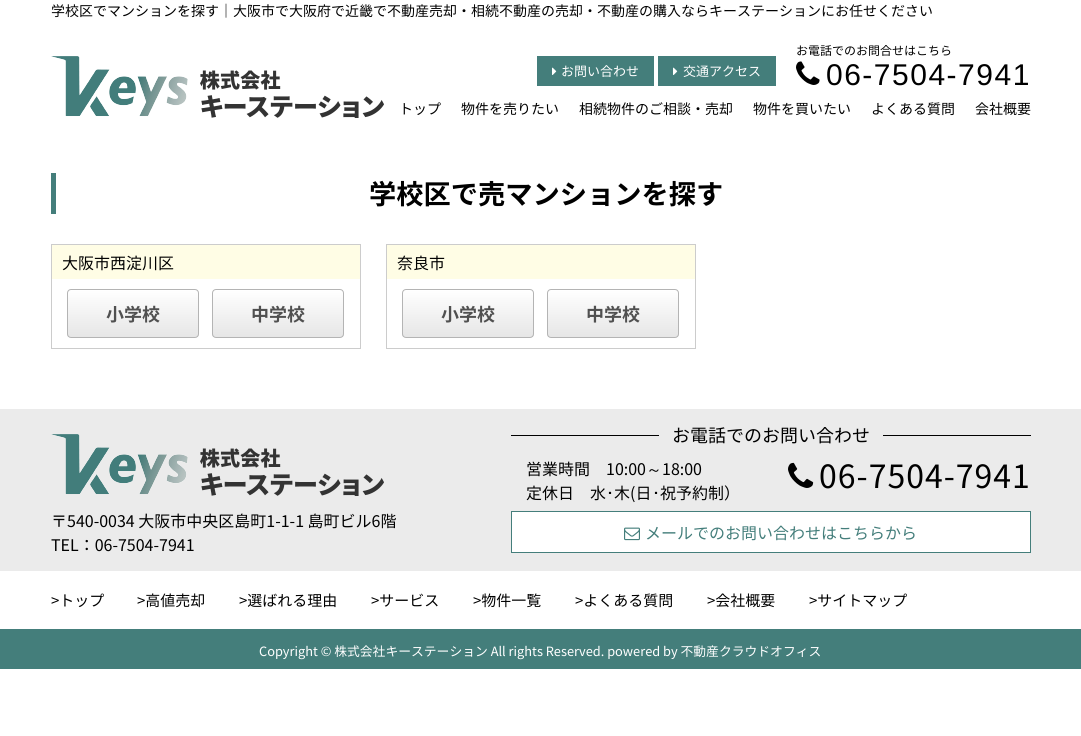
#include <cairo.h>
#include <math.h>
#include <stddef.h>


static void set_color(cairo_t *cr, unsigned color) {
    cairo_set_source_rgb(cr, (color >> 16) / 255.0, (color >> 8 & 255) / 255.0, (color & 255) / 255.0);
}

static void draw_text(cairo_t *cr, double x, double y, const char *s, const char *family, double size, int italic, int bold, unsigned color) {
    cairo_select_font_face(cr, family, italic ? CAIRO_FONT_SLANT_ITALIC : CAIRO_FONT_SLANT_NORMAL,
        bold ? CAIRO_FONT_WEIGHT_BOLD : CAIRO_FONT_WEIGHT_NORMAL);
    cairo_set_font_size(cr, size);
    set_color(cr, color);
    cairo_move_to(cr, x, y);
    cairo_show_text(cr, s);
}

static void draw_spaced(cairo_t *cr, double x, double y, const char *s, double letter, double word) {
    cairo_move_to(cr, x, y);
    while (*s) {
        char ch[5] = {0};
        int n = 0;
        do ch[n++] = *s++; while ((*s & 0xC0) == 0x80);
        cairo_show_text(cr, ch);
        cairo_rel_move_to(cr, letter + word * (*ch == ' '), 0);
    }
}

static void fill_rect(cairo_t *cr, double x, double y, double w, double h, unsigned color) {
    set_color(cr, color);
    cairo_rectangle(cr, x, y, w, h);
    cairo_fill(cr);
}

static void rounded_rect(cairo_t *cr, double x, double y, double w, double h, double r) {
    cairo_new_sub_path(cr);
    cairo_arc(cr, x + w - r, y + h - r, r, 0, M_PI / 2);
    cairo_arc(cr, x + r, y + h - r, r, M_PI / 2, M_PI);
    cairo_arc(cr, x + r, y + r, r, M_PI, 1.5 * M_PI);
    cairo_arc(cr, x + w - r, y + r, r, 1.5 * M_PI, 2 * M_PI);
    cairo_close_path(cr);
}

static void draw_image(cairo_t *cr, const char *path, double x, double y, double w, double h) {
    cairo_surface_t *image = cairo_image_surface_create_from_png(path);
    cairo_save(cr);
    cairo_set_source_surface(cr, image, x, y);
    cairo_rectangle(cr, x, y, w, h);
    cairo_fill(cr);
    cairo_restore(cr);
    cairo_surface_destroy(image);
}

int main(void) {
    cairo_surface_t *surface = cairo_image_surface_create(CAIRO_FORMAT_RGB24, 1081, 736);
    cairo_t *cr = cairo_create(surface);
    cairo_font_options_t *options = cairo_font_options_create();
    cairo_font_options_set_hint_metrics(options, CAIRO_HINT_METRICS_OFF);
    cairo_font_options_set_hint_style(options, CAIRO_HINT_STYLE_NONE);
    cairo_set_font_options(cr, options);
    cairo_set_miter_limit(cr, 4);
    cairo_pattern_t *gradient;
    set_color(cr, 0xFFFFFF);
    cairo_paint(cr);
    draw_text(cr, 51, 16, "学校区でマンションを探す｜大阪市で大阪府で近畿で不動産売却・相続不動産の売却・不動産の購入ならキーステーションにお任せください", "Noto Sans JP", 14, 0, 0, 0x000000);
    draw_image(cr, "assets/img1.png", 51, 56, 333, 62);
    fill_rect(cr, 537, 56, 117, 30, 0x447E7B);
    draw_image(cr, "assets/img2.png", 552, 67, 5, 8);
    draw_text(cr, 561, 76, "お問い合わせ", "Noto Sans JP", 13, 0, 0, 0xFFFFFF);
    fill_rect(cr, 658, 56, 118, 30, 0x447E7B);
    draw_image(cr, "assets/img2.png", 673, 67, 5, 8);
    draw_text(cr, 683, 76, "交通アクセス", "Noto Sans JP", 13, 0, 0, 0xFFFFFF);
    draw_text(cr, 796, 55, "お電話でのお問合せはこちら", "Noto Sans JP", 12, 0, 0, 0x000000);
    draw_image(cr, "assets/img3.png", 796, 61, 24, 24);
    cairo_select_font_face(cr, "Liberation Sans", CAIRO_FONT_SLANT_NORMAL, CAIRO_FONT_WEIGHT_NORMAL);
    cairo_set_font_size(cr, 30);
    draw_spaced(cr, 826, 85, "06-7504-7941", 1.5, 0);
    draw_text(cr, 399, 114, "トップ", "Noto Sans JP", 14, 0, 0, 0x000000);
    draw_text(cr, 461, 114, "物件を売りたい", "Noto Sans JP", 14, 0, 0, 0x000000);
    draw_text(cr, 579, 114, "相続物件のご相談・売却", "Noto Sans JP", 14, 0, 0, 0x000000);
    draw_text(cr, 753, 114, "物件を買いたい", "Noto Sans JP", 14, 0, 0, 0x000000);
    draw_text(cr, 871, 114, "よくある質問", "Noto Sans JP", 14, 0, 0, 0x000000);
    draw_text(cr, 975, 114, "会社概要", "Noto Sans JP", 14, 0, 0, 0x000000);
    fill_rect(cr, 51, 173, 5, 41, 0x447E7B);
    draw_text(cr, 369, 204, "学校区で売マンションを探す", "Noto Sans JP", 27.25, 0, 1, 0x000000);
    cairo_rectangle(cr, 51.5, 244.5, 309, 104);
    set_color(cr, 0xCCCCCC);
    cairo_set_line_width(cr, 1);
    cairo_stroke(cr);
    fill_rect(cr, 52, 245, 308, 34, 0xFFFDE5);
    draw_text(cr, 62, 269, "大阪市西淀川区", "Noto Sans JP", 16, 0, 0, 0x000000);
    cairo_save(cr);
    rounded_rect(cr, 67, 289, 132, 49, 4);
    cairo_clip(cr);
    gradient = cairo_pattern_create_linear(133, 290, 133, 337);
    cairo_pattern_add_color_stop_rgba(gradient, 0, 1, 1, 1, 1);
    cairo_pattern_add_color_stop_rgba(gradient, 1, 0.902, 0.902, 0.902, 1);
    cairo_set_source(cr, gradient);
    cairo_pattern_destroy(gradient);
    cairo_rectangle(cr, 67, 290, 132, 47);
    cairo_fill(cr);
    cairo_restore(cr);
    rounded_rect(cr, 67.5, 289.5, 131, 48, 3.5);
    set_color(cr, 0xB4B4B4);
    cairo_stroke(cr);
    draw_text(cr, 106, 321, "小学校", "Noto Sans JP", 18, 0, 1, 0x505050);
    cairo_save(cr);
    rounded_rect(cr, 212, 289, 132, 49, 4);
    cairo_clip(cr);
    gradient = cairo_pattern_create_linear(278, 290, 278, 337);
    cairo_pattern_add_color_stop_rgba(gradient, 0, 1, 1, 1, 1);
    cairo_pattern_add_color_stop_rgba(gradient, 1, 0.902, 0.902, 0.902, 1);
    cairo_set_source(cr, gradient);
    cairo_pattern_destroy(gradient);
    cairo_rectangle(cr, 212, 290, 132, 47);
    cairo_fill(cr);
    cairo_restore(cr);
    rounded_rect(cr, 212.5, 289.5, 131, 48, 3.5);
    set_color(cr, 0xB4B4B4);
    cairo_stroke(cr);
    draw_text(cr, 251, 321, "中学校", "Noto Sans JP", 18, 0, 1, 0x505050);
    cairo_rectangle(cr, 386.5, 244.5, 309, 104);
    set_color(cr, 0xCCCCCC);
    cairo_stroke(cr);
    fill_rect(cr, 387, 245, 308, 34, 0xFFFDE5);
    draw_text(cr, 397, 269, "奈良市", "Noto Sans JP", 16, 0, 0, 0x000000);
    cairo_save(cr);
    rounded_rect(cr, 402, 289, 132, 49, 4);
    cairo_clip(cr);
    gradient = cairo_pattern_create_linear(468, 290, 468, 337);
    cairo_pattern_add_color_stop_rgba(gradient, 0, 1, 1, 1, 1);
    cairo_pattern_add_color_stop_rgba(gradient, 1, 0.902, 0.902, 0.902, 1);
    cairo_set_source(cr, gradient);
    cairo_pattern_destroy(gradient);
    cairo_rectangle(cr, 402, 290, 132, 47);
    cairo_fill(cr);
    cairo_restore(cr);
    rounded_rect(cr, 402.5, 289.5, 131, 48, 3.5);
    set_color(cr, 0xB4B4B4);
    cairo_stroke(cr);
    draw_text(cr, 441, 321, "小学校", "Noto Sans JP", 18, 0, 1, 0x505050);
    cairo_save(cr);
    rounded_rect(cr, 547, 289, 132, 49, 4);
    cairo_clip(cr);
    gradient = cairo_pattern_create_linear(613, 290, 613, 337);
    cairo_pattern_add_color_stop_rgba(gradient, 0, 1, 1, 1, 1);
    cairo_pattern_add_color_stop_rgba(gradient, 1, 0.902, 0.902, 0.902, 1);
    cairo_set_source(cr, gradient);
    cairo_pattern_destroy(gradient);
    cairo_rectangle(cr, 547, 290, 132, 47);
    cairo_fill(cr);
    cairo_restore(cr);
    rounded_rect(cr, 547.5, 289.5, 131, 48, 3.5);
    set_color(cr, 0xB4B4B4);
    cairo_stroke(cr);
    draw_text(cr, 586, 321, "中学校", "Noto Sans JP", 18, 0, 1, 0x505050);
    fill_rect(cr, 0, 409, 1081, 162, 0xEBEBEB);
    draw_image(cr, "assets/img4.png", 51, 434, 333, 62);
    draw_text(cr, 51, 527, "〒540-0034 大阪市中央区島町1-1-1 島町ビル6階", "Noto Sans JP", 16, 0, 0, 0x000000);
    draw_text(cr, 51, 551, "TEL：06-7504-7941", "Noto Sans JP", 16, 0, 0, 0x000000);
    fill_rect(cr, 511, 435, 520, 1, 0x000000);
    fill_rect(cr, 659, 435, 224, 1, 0xEBEBEB);
    draw_text(cr, 672, 442, "お電話でのお問い合わせ", "Noto Sans JP", 18, 0, 0, 0x000000);
    draw_text(cr, 526, 475, "営業時間　10:00", "Noto Sans JP", 16, 0, 0, 0x000000);
    draw_text(cr, 646, 475, "～", "WenQuanYi Zen Hei Medium", 16, 0, 0, 0x000000);
    draw_text(cr, 662, 475, "18:00", "Noto Sans JP", 16, 0, 0, 0x000000);
    draw_text(cr, 526, 499, "定休日　水", "Noto Sans JP", 16, 0, 0, 0x000000);
    draw_text(cr, 606, 499, "･", "IPAPGothic", 16, 0, 0, 0x000000);
    draw_text(cr, 614, 499, "木(日", "Noto Sans JP", 16, 0, 0, 0x000000);
    draw_text(cr, 652, 499, "･", "IPAPGothic", 16, 0, 0, 0x000000);
    draw_text(cr, 660, 499, "祝予約制）", "Noto Sans JP", 16, 0, 0, 0x000000);
    draw_image(cr, "assets/img5.png", 788, 462, 26, 26);
    cairo_set_font_size(cr, 32);
    draw_spaced(cr, 819, 488, "06-7504-7941", 1, 0);
    set_color(cr, 0xFFFFFF);
    cairo_rectangle(cr, 511.5, 511.5, 519, 41);
    cairo_fill_preserve(cr);
    set_color(cr, 0x447E7B);
    cairo_stroke(cr);
    draw_image(cr, "assets/img6.png", 624, 527, 16, 14);
    draw_text(cr, 645, 539, "メールでのお問い合わせはこちらから", "Noto Sans JP", 16, 0, 0, 0x447E7B);
    draw_text(cr, 51, 606, ">トップ", "Noto Sans JP", 15, 0, 0, 0x000000);
    draw_text(cr, 137, 606, ">高値売却", "Noto Sans JP", 15, 0, 0, 0x000000);
    draw_text(cr, 239, 606, ">選ばれる理由", "Noto Sans JP", 15, 0, 0, 0x000000);
    draw_text(cr, 371, 606, ">サービス", "Noto Sans JP", 15, 0, 0, 0x000000);
    draw_text(cr, 473, 606, ">物件一覧", "Noto Sans JP", 15, 0, 0, 0x000000);
    draw_text(cr, 575, 606, ">よくある質問", "Noto Sans JP", 15, 0, 0, 0x000000);
    draw_text(cr, 707, 606, ">会社概要", "Noto Sans JP", 15, 0, 0, 0x000000);
    draw_text(cr, 809, 606, ">サイトマップ", "Noto Sans JP", 15, 0, 0, 0x000000);
    fill_rect(cr, 0, 629, 1081, 40, 0x447E7B);
    draw_text(cr, 259, 656, "Copyright © 株式会社キーステーション All rights Reserved. powered by 不動産クラウドオフィス", "Noto Sans JP", 12.8, 0, 0, 0xFFFFFF);
    cairo_surface_write_to_png(surface, "output.png");
    cairo_font_options_destroy(options);
    cairo_destroy(cr);
    cairo_surface_destroy(surface);
    return 0;
}
